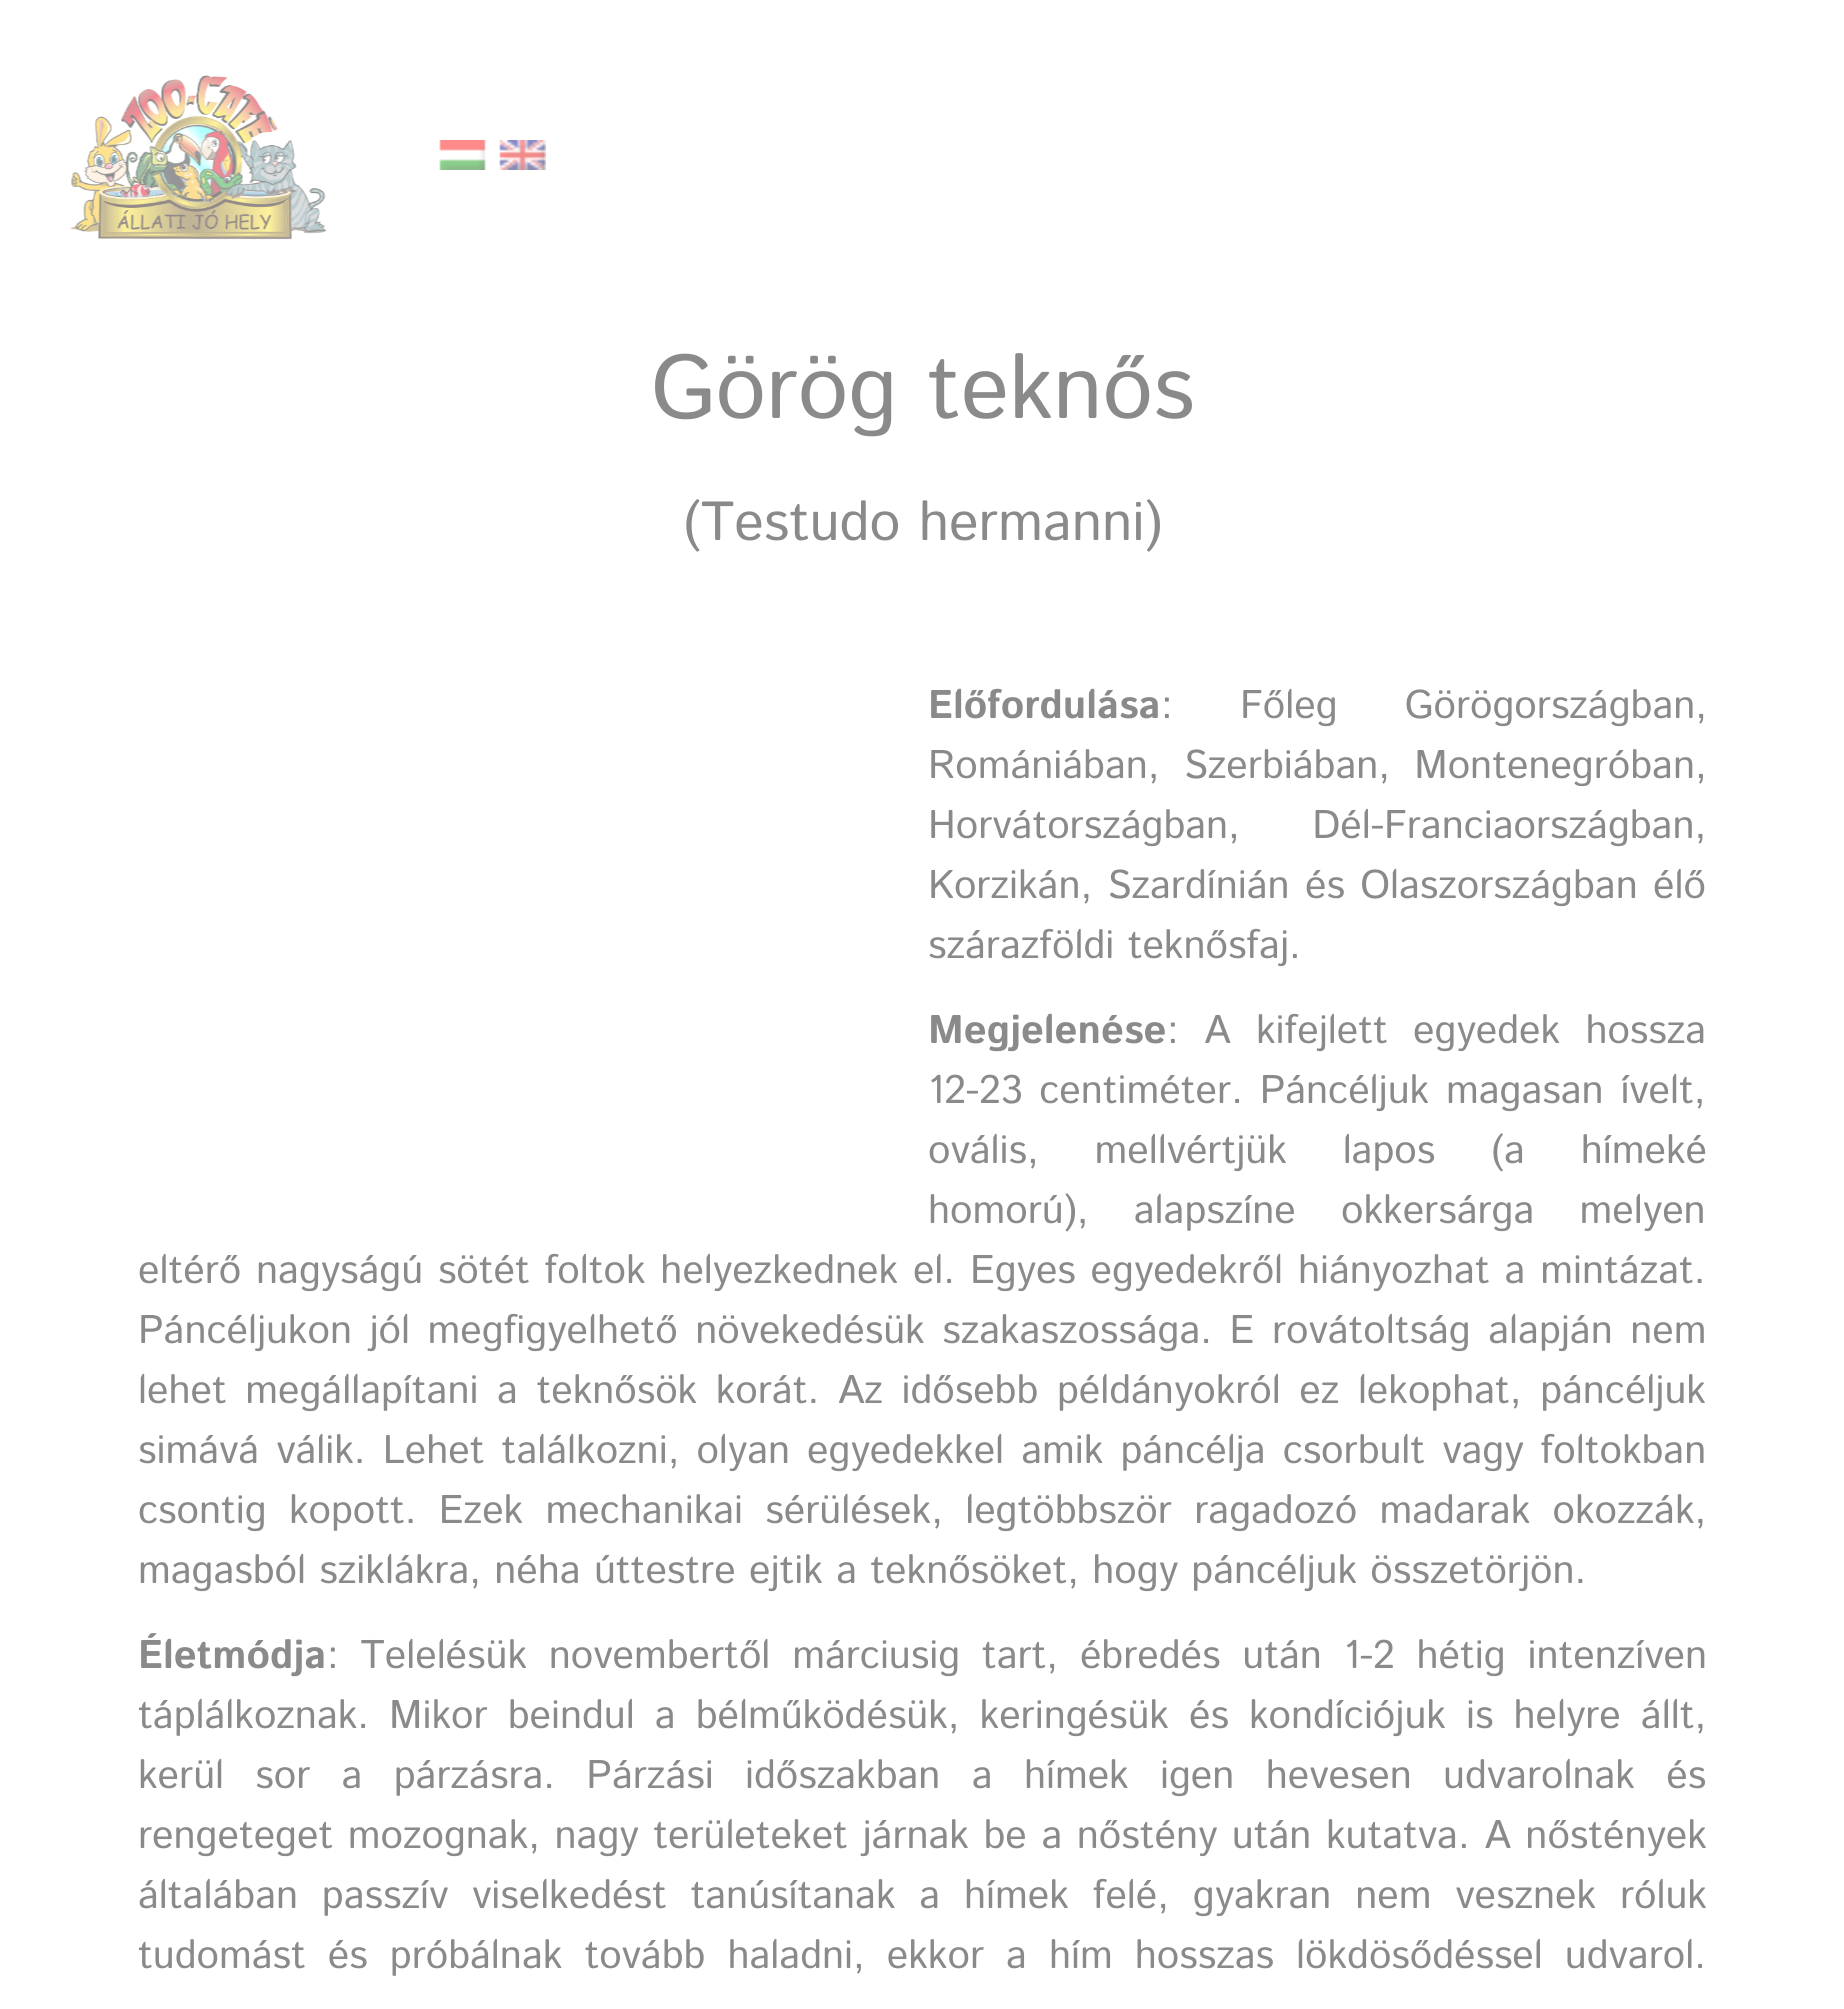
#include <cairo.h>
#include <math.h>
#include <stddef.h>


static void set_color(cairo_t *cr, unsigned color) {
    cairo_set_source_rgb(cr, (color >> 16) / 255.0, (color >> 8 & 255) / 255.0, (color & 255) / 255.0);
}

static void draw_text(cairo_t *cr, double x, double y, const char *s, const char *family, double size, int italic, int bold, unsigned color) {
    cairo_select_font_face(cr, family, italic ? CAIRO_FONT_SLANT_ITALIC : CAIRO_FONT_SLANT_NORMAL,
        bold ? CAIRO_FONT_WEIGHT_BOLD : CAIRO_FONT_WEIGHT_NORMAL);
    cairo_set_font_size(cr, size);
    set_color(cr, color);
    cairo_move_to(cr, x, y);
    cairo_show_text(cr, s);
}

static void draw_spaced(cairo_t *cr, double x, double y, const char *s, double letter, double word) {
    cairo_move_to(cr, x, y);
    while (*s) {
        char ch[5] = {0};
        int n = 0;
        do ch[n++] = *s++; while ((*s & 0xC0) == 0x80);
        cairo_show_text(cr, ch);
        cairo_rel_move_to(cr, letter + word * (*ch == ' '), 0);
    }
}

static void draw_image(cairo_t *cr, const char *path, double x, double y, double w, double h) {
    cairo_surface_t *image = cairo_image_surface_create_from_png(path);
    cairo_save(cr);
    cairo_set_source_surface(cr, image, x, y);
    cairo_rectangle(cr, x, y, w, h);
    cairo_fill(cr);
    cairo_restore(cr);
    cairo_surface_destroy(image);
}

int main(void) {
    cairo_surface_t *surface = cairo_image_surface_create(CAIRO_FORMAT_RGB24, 1844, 2009);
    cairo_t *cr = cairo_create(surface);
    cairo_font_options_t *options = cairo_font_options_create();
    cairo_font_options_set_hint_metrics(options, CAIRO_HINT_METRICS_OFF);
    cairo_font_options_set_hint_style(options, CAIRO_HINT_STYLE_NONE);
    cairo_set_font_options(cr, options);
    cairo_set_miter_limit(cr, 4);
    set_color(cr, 0xFFFFFF);
    cairo_paint(cr);
    draw_image(cr, "assets/img1.png", 70, 75, 257, 165);
    draw_image(cr, "assets/img2.png", 439, 140, 47, 30);
    draw_image(cr, "assets/img3.png", 499, 140, 47, 30);
    draw_text(cr, 651, 418, "Görög teknős", "Istok Web", 90, 0, 0, 0x8A8A8A);
    draw_text(cr, 683, 540, "(Testudo hermanni)", "Istok Web", 55, 0, 0, 0x8A8A8A);
    draw_text(cr, 928, 718, "Előfordulása", "Istok Web", 40, 0, 1, 0x8A8A8A);
    cairo_select_font_face(cr, "Istok Web", CAIRO_FONT_SLANT_NORMAL, CAIRO_FONT_WEIGHT_NORMAL);
    draw_spaced(cr, 1161, 718, ": Főleg Görögországban,", 0, 54);
    draw_spaced(cr, 928, 778, "Romániában, Szerbiában, Montenegróban,", 0, 11);
    draw_spaced(cr, 928, 838, "Horvátországban, Dél-Franciaországban,", 0, 59);
    draw_spaced(cr, 928, 898, "Korzikán, Szardínián és Olaszországban élő", 0, 2);
    draw_text(cr, 928, 958, "szárazföldi teknősfaj.", "Istok Web", 40, 0, 0, 0x8A8A8A);
    draw_text(cr, 928, 1043, "Megjelenése", "Istok Web", 40, 0, 1, 0x8A8A8A);
    cairo_select_font_face(cr, "Istok Web", CAIRO_FONT_SLANT_NORMAL, CAIRO_FONT_WEIGHT_NORMAL);
    draw_spaced(cr, 1167, 1043, ": A kifejlett egyedek hossza", 0, 12);
    draw_spaced(cr, 928, 1103, "12-23 centiméter. Páncéljuk magasan ívelt,", 0, 3.5);
    draw_spaced(cr, 928, 1163, "ovális, mellvértjük lapos (a hímeké", 0, 42.5);
    draw_spaced(cr, 928, 1223, "homorú), alapszíne okkersárga melyen", 0, 32);
    draw_spaced(cr, 138, 1283, "eltérő nagyságú sötét foltok helyezkednek el. Egyes egyedekről hiányozhat a mintázat.", 0, 1.5);
    draw_spaced(cr, 138, 1343, "Páncéljukon jól megfigyelhető növekedésük szakaszossága. E rovátoltság alapján nem", 0, 4.25);
    draw_spaced(cr, 138, 1403, "lehet megállapítani a teknősök korát. Az idősebb példányokról ez lekophat, páncéljuk", 0, 5.25);
    draw_spaced(cr, 138, 1463, "simává válik. Lehet találkozni, olyan egyedekkel amik páncélja csorbult vagy foltokban", 0, 3.75);
    draw_spaced(cr, 138, 1523, "csontig kopott. Ezek mechanikai sérülések, legtöbbször ragadozó madarak okozzák,", 0, 9);
    draw_text(cr, 138, 1583, "magasból sziklákra, néha úttestre ejtik a teknősöket, hogy páncéljuk összetörjön.", "Istok Web", 40, 0, 0, 0x8A8A8A);
    draw_text(cr, 138, 1668, "Életmódja", "Istok Web", 40, 0, 1, 0x8A8A8A);
    cairo_select_font_face(cr, "Istok Web", CAIRO_FONT_SLANT_NORMAL, CAIRO_FONT_WEIGHT_NORMAL);
    draw_spaced(cr, 327, 1668, ": Telelésük novembertől márciusig tart, ébredés után 1-2 hétig intenzíven", 0, 8.5);
    draw_spaced(cr, 138, 1728, "táplálkoznak. Mikor beindul a bélműködésük, keringésük és kondíciójuk is helyre állt,", 0, 6.75);
    draw_spaced(cr, 138, 1788, "kerül sor a párzásra. Párzási időszakban a hímek igen hevesen udvarolnak és", 0, 18);
    draw_spaced(cr, 138, 1848, "rengeteget mozognak, nagy területeket járnak be a nőstény után kutatva. A nőstények", 0, 1.25);
    draw_spaced(cr, 138, 1908, "általában passzív viselkedést tanúsítanak a hímek felé, gyakran nem vesznek róluk", 0, 10.5);
    draw_spaced(cr, 138, 1968, "tudomást és próbálnak tovább haladni, ekkor a hím hosszas lökdösődéssel udvarol.", 0, 8.75);
    cairo_surface_write_to_png(surface, "output.png");
    cairo_font_options_destroy(options);
    cairo_destroy(cr);
    cairo_surface_destroy(surface);
    return 0;
}
